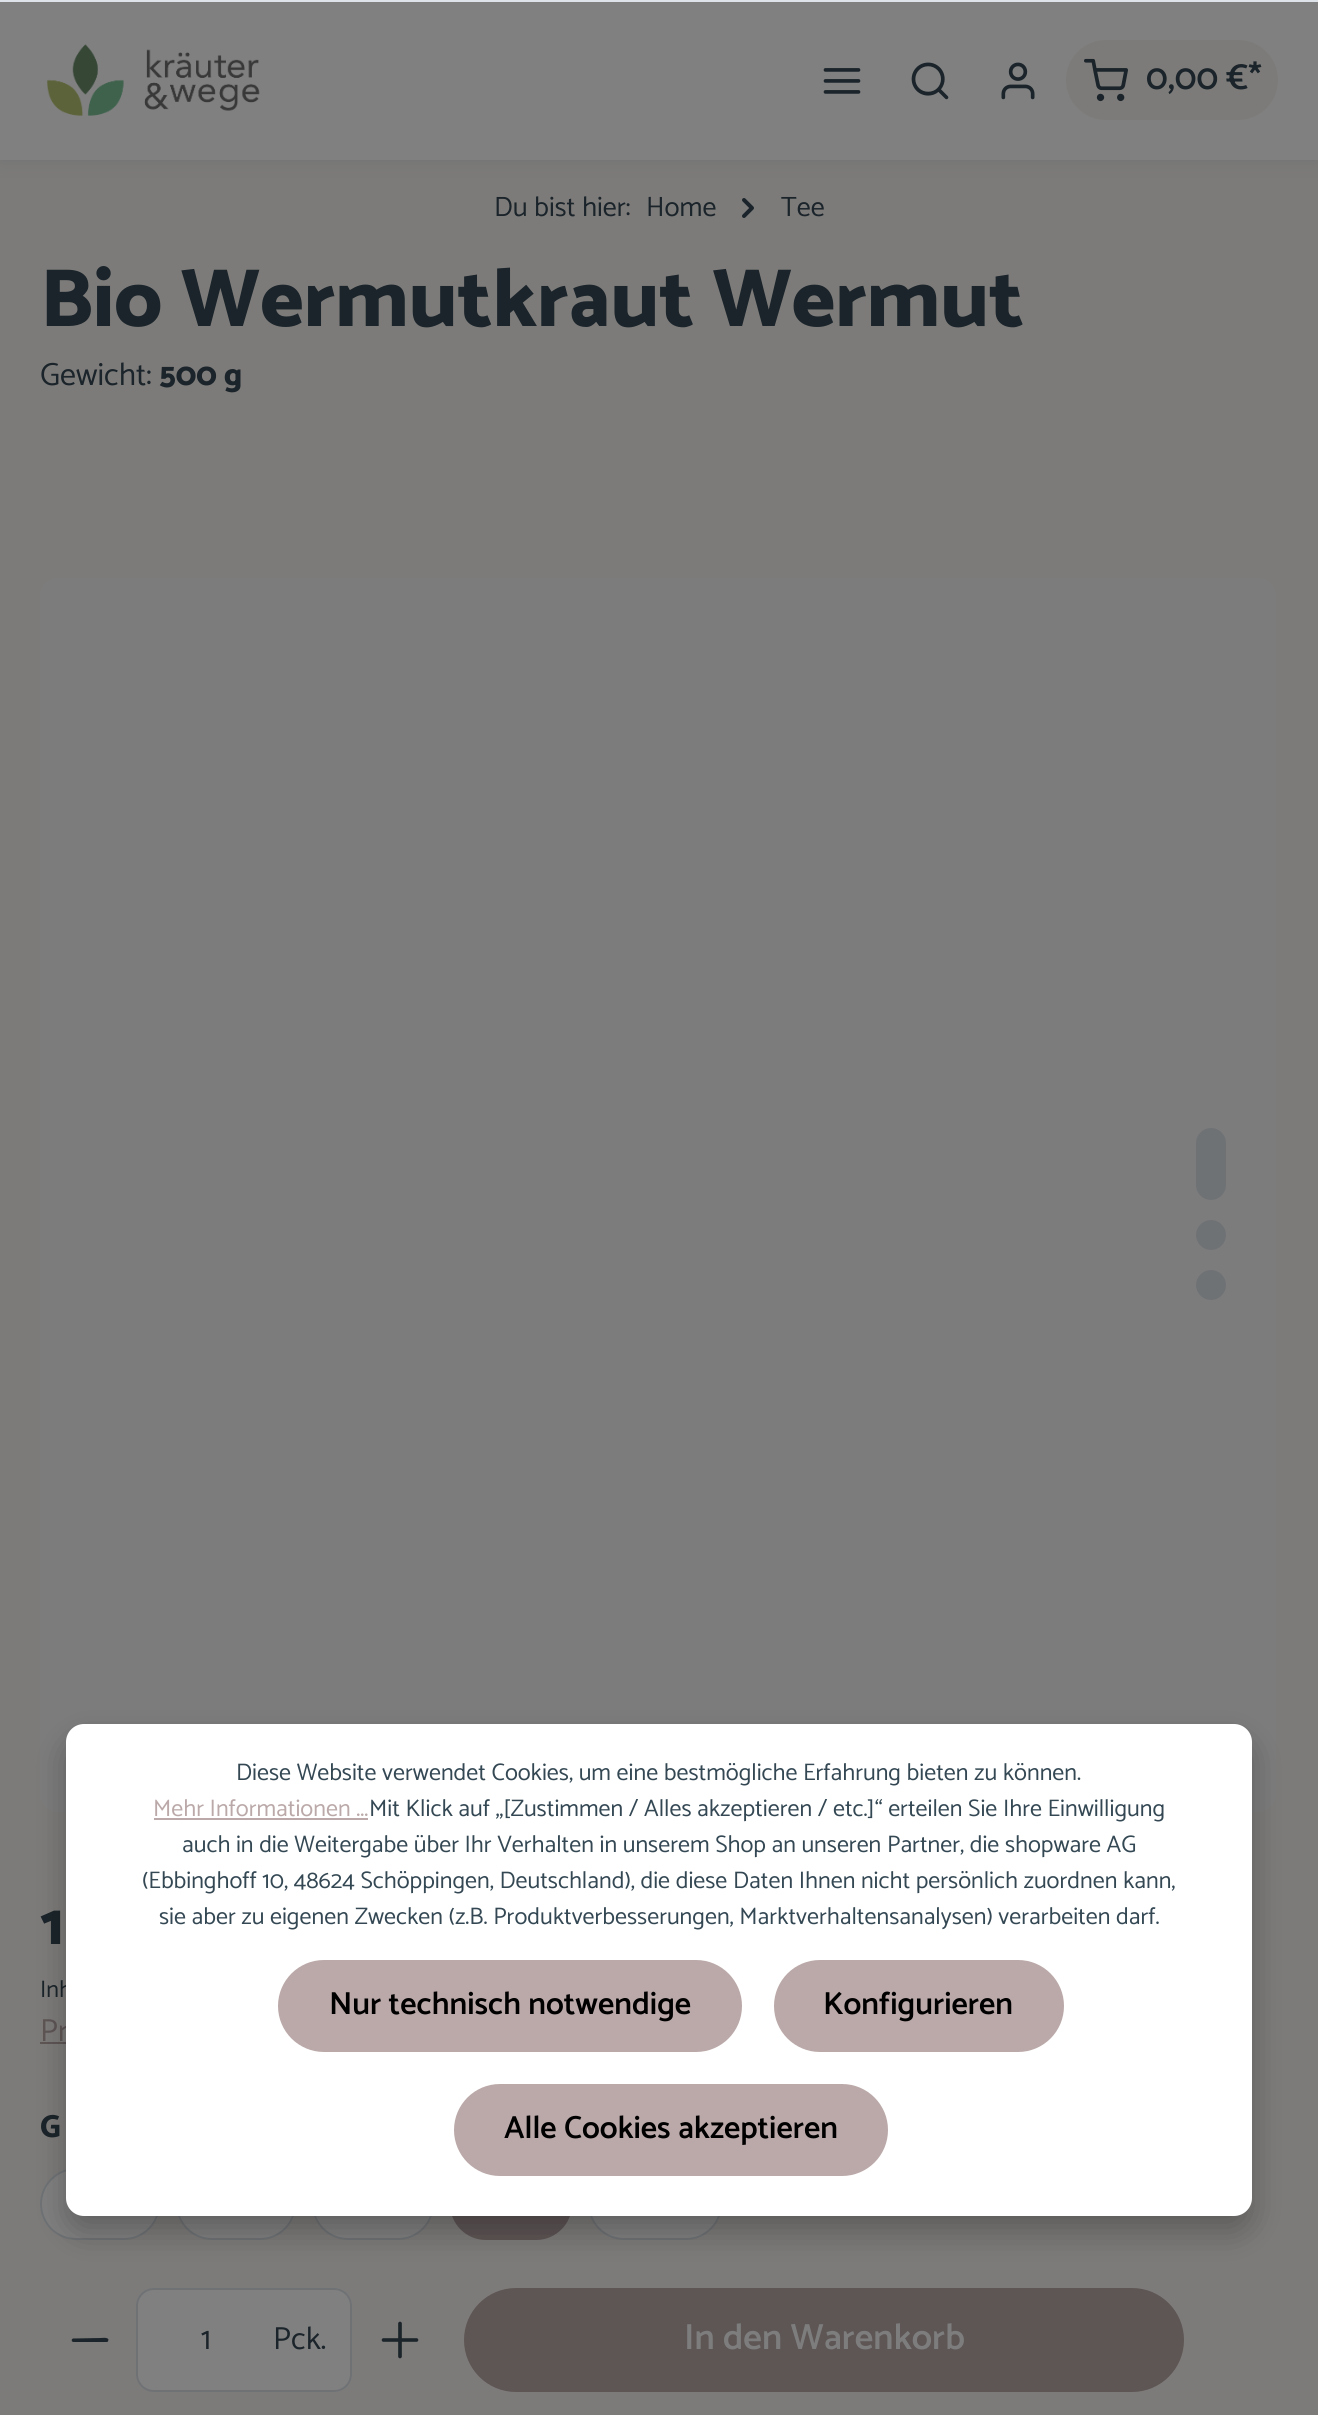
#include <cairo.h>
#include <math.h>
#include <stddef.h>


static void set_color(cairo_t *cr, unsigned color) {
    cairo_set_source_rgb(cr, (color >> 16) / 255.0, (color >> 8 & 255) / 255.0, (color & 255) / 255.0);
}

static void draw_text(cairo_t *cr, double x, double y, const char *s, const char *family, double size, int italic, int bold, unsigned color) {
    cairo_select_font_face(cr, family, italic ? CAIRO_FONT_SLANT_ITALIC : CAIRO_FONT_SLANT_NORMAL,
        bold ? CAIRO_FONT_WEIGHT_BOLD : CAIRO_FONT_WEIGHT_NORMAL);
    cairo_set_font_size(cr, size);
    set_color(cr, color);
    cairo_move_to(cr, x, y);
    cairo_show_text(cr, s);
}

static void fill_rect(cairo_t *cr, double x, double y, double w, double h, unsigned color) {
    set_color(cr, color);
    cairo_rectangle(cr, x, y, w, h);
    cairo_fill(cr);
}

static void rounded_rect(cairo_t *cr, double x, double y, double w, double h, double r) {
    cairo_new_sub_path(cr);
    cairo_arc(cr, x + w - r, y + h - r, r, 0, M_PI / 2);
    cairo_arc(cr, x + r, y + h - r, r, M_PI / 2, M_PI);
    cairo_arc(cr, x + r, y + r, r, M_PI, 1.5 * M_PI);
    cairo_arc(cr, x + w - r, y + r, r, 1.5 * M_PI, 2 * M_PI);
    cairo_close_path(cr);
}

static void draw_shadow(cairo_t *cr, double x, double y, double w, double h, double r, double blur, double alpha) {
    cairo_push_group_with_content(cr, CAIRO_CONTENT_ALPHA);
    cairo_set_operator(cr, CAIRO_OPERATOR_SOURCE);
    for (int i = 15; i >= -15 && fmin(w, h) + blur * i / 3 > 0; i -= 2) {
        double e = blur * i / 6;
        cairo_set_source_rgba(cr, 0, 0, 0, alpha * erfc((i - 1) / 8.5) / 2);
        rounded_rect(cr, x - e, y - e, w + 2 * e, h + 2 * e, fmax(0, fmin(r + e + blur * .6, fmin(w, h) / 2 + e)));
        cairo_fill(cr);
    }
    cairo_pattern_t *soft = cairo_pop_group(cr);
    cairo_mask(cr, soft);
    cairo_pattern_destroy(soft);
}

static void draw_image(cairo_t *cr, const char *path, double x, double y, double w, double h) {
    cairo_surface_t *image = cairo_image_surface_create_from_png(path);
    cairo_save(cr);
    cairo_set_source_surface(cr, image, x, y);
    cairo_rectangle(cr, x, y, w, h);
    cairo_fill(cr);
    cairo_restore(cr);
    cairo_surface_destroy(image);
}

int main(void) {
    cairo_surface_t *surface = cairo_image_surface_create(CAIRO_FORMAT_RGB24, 1318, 2415);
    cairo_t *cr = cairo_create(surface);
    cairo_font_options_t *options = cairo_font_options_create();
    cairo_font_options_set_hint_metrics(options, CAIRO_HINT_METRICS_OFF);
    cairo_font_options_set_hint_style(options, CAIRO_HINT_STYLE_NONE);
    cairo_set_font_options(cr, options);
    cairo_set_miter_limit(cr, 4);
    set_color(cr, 0x7D7B79);
    cairo_paint(cr);
    set_color(cr, 0x6F7275);
    draw_shadow(cr, 0, 0, 1318, 160, 0, 10, 1);
    fill_rect(cr, 0, 2, 1318, 158, 0x808080);
    draw_image(cr, "assets/img1.png", 47, 44, 213, 72);
    draw_image(cr, "assets/img2.png", 823, 68, 38, 26);
    draw_image(cr, "assets/img3.png", 911, 62, 38, 38);
    draw_image(cr, "assets/img4.png", 1001, 62, 34, 38);
    set_color(cr, 0x7D7B79);
    rounded_rect(cr, 1066, 40, 212, 80, 40);
    cairo_fill(cr);
    draw_image(cr, "assets/img5.png", 1084, 58, 44, 44);
    draw_text(cr, 1146, 89, "0,00 €*", "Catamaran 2 Thin", 36, 0, 0, 0x1A242A);
    draw_text(cr, 494, 216, "Du bist hier:", "Catamaran Thin", 28, 0, 0, 0x1A242A);
    draw_text(cr, 646, 216, "Home", "Catamaran Thin", 28, 0, 0, 0x1A242A);
    draw_image(cr, "assets/img6.png", 742, 198, 12, 20);
    draw_text(cr, 781, 216, "Tee", "Catamaran Thin", 28, 0, 0, 0x1A242A);
    draw_text(cr, 40, 326, "Bio Wermutkraut Wermut", "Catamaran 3 Thin", 82.75, 0, 0, 0x1A242A);
    draw_text(cr, 40, 385, "Gewicht:", "Catamaran Thin", 32, 0, 0, 0x1A242A);
    draw_text(cr, 159, 385, "500 g", "Catamaran 3 Thin", 32, 0, 0, 0x1A242A);
    set_color(cr, 0x7C7C7C);
    rounded_rect(cr, 40, 578, 1236, 1234, 18);
    cairo_fill(cr);
    set_color(cr, 0x6F7275);
    rounded_rect(cr, 1198, 1130, 26, 68, 13);
    cairo_fill_preserve(cr);
    cairo_set_line_width(cr, 4);
    cairo_stroke(cr);
    cairo_arc(cr, 1211, 1235, 13, 0, 2 * M_PI);
    cairo_fill_preserve(cr);
    cairo_stroke(cr);
    cairo_arc(cr, 1211, 1285, 13, 0, 2 * M_PI);
    cairo_fill_preserve(cr);
    cairo_stroke(cr);
    draw_text(cr, 40, 1944, "1", "Catamaran 3 Thin", 59, 0, 0, 0x1A242A);
    draw_text(cr, 40, 1997, "Inh", "Catamaran Thin", 24, 0, 0, 0x1A242A);
    draw_text(cr, 40, 2041, "Pr", "Catamaran Thin", 32, 0, 0, 0x5E5555);
    fill_rect(cr, 40, 2042, 26, 2, 0x5E5555);
    draw_text(cr, 40, 2137, "G", "Catamaran 3 Thin", 32, 0, 0, 0x1A242A);
    set_color(cr, 0x808080);
    rounded_rect(cr, 41, 2169, 118, 70, 35);
    cairo_fill_preserve(cr);
    set_color(cr, 0x6F7275);
    cairo_set_line_width(cr, 2);
    cairo_stroke(cr);
    set_color(cr, 0x808080);
    rounded_rect(cr, 177, 2169, 118, 70, 35);
    cairo_fill_preserve(cr);
    set_color(cr, 0x6F7275);
    cairo_stroke(cr);
    set_color(cr, 0x808080);
    rounded_rect(cr, 313, 2169, 120, 70, 35);
    cairo_fill_preserve(cr);
    set_color(cr, 0x6F7275);
    cairo_stroke(cr);
    set_color(cr, 0x5E5555);
    rounded_rect(cr, 451, 2169, 120, 70, 35);
    cairo_fill_preserve(cr);
    cairo_stroke(cr);
    set_color(cr, 0x808080);
    rounded_rect(cr, 589, 2169, 132, 70, 35);
    cairo_fill_preserve(cr);
    set_color(cr, 0x6F7275);
    cairo_stroke(cr);
    set_color(cr, 0x1A242A);
    cairo_set_fill_rule(cr, CAIRO_FILL_RULE_EVEN_ODD);
    cairo_new_path(cr);
    cairo_move_to(cr, 73.5, 2342);
    cairo_line_to(cr, 107, 2342);
    cairo_line_to(cr, 108, 2341.5);
    cairo_curve_to(cr, 108, 2341, 108.5, 2340, 108.5, 2339.5);
    cairo_curve_to(cr, 107.5, 2337, 101.5, 2338, 101, 2338);
    cairo_line_to(cr, 73, 2338.5);
    cairo_curve_to(cr, 71.5, 2339, 71.5, 2340.5, 72, 2341.5);
    cairo_close_path(cr);
    cairo_fill(cr);
    set_color(cr, 0x808080);
    cairo_new_path(cr);
    cairo_move_to(cr, 154, 2289);
    cairo_line_to(cr, 273, 2289);
    cairo_line_to(cr, 273, 2391);
    cairo_line_to(cr, 154, 2391);
    cairo_curve_to(cr, 144.5, 2391, 137, 2383.5, 137, 2374);
    cairo_line_to(cr, 137, 2306);
    cairo_curve_to(cr, 137, 2296.5, 144.5, 2289, 154, 2289);
    cairo_close_path(cr);
    cairo_fill_preserve(cr);
    set_color(cr, 0x6F7275);
    cairo_stroke(cr);
    draw_text(cr, 201, 2349, "1", "Catamaran Thin", 32, 0, 0, 0x1A242A);
    set_color(cr, 0x808080);
    cairo_new_path(cr);
    cairo_move_to(cr, 272, 2288);
    cairo_line_to(cr, 334, 2288);
    cairo_curve_to(cr, 344, 2288, 352, 2296, 352, 2306);
    cairo_line_to(cr, 352, 2374);
    cairo_curve_to(cr, 352, 2384, 344, 2392, 334, 2392);
    cairo_line_to(cr, 272, 2392);
    cairo_close_path(cr);
    cairo_fill(cr);
    set_color(cr, 0x6F7275);
    cairo_new_path(cr);
    cairo_move_to(cr, 272, 2288);
    cairo_line_to(cr, 334, 2288);
    cairo_curve_to(cr, 344, 2288, 352, 2296, 352, 2306);
    cairo_line_to(cr, 352, 2374);
    cairo_curve_to(cr, 352, 2384, 344, 2392, 334, 2392);
    cairo_line_to(cr, 272, 2392);
    cairo_close_path(cr);
    cairo_move_to(cr, 272, 2290);
    cairo_line_to(cr, 334, 2290);
    cairo_curve_to(cr, 343, 2290, 350, 2297, 350, 2306);
    cairo_line_to(cr, 350, 2374);
    cairo_curve_to(cr, 350, 2383, 343, 2390, 334, 2390);
    cairo_line_to(cr, 272, 2390);
    cairo_close_path(cr);
    cairo_fill(cr);
    draw_text(cr, 273, 2349, "Pck.", "Catamaran Thin", 32, 0, 0, 0x1A242A);
    draw_image(cr, "assets/img7.png", 381, 2321, 38, 38);
    set_color(cr, 0x5E5555);
    rounded_rect(cr, 465, 2289, 718, 102, 51);
    cairo_fill_preserve(cr);
    cairo_stroke(cr);
    draw_text(cr, 684, 2349, "In den Warenkorb", "Catamaran 2 Thin", 36.5, 0, 0, 0x7D7D7D);
    fill_rect(cr, 0, 0, 1318, 2, 0xDEE3E9);
    set_color(cr, 0x000000);
    draw_shadow(cr, 66, 1740, 1186, 492, 18, 16, 0.25);
    set_color(cr, 0xFFFFFF);
    rounded_rect(cr, 66, 1724, 1186, 492, 18);
    cairo_fill(cr);
    draw_text(cr, 236, 1780, "Diese Website verwendet Cookies, um eine bestmögliche Erfahrung bieten zu können.", "Catamaran Thin", 24, 0, 0, 0x344854);
    draw_text(cr, 153, 1816, "Mehr Informationen ...", "Catamaran Thin", 24, 0, 0, 0xBBA9A9);
    fill_rect(cr, 154, 1818, 214, 2, 0xBBA9A9);
    draw_text(cr, 369, 1816, "Mit Klick auf „[Zustimmen / Alles akzeptieren / etc.]“ erteilen Sie Ihre Einwilligung", "Catamaran Thin", 24, 0, 0, 0x344854);
    draw_text(cr, 182, 1852, "auch in die Weitergabe über Ihr Verhalten in unserem Shop an unseren Partner, die shopware AG", "Catamaran Thin", 24, 0, 0, 0x344854);
    draw_text(cr, 142, 1888, "(Ebbinghoff 10, 48624 Schöppingen, Deutschland), die diese Daten Ihnen nicht persönlich zuordnen kann,", "Catamaran Thin", 24, 0, 0, 0x344854);
    draw_text(cr, 159, 1924, "sie aber zu eigenen Zwecken (z.B. Produktverbesserungen, Marktverhaltensanalysen) verarbeiten darf.", "Catamaran Thin", 24, 0, 0, 0x344854);
    set_color(cr, 0xBBA9A9);
    rounded_rect(cr, 279, 1961, 462, 90, 45);
    cairo_fill_preserve(cr);
    cairo_stroke(cr);
    draw_text(cr, 329, 2014, "Nur technisch notwendige", "Catamaran 2 Thin", 32, 0, 0, 0x000000);
    set_color(cr, 0xBBA9A9);
    rounded_rect(cr, 775, 1961, 288, 90, 45);
    cairo_fill_preserve(cr);
    cairo_stroke(cr);
    draw_text(cr, 823, 2014, "Konfigurieren", "Catamaran 2 Thin", 32, 0, 0, 0x000000);
    set_color(cr, 0xBBA9A9);
    rounded_rect(cr, 455, 2085, 432, 90, 45);
    cairo_fill_preserve(cr);
    cairo_stroke(cr);
    draw_text(cr, 504, 2138, "Alle Cookies akzeptieren", "Catamaran 2 Thin", 32, 0, 0, 0x000000);
    cairo_surface_write_to_png(surface, "output.png");
    cairo_font_options_destroy(options);
    cairo_destroy(cr);
    cairo_surface_destroy(surface);
    return 0;
}
